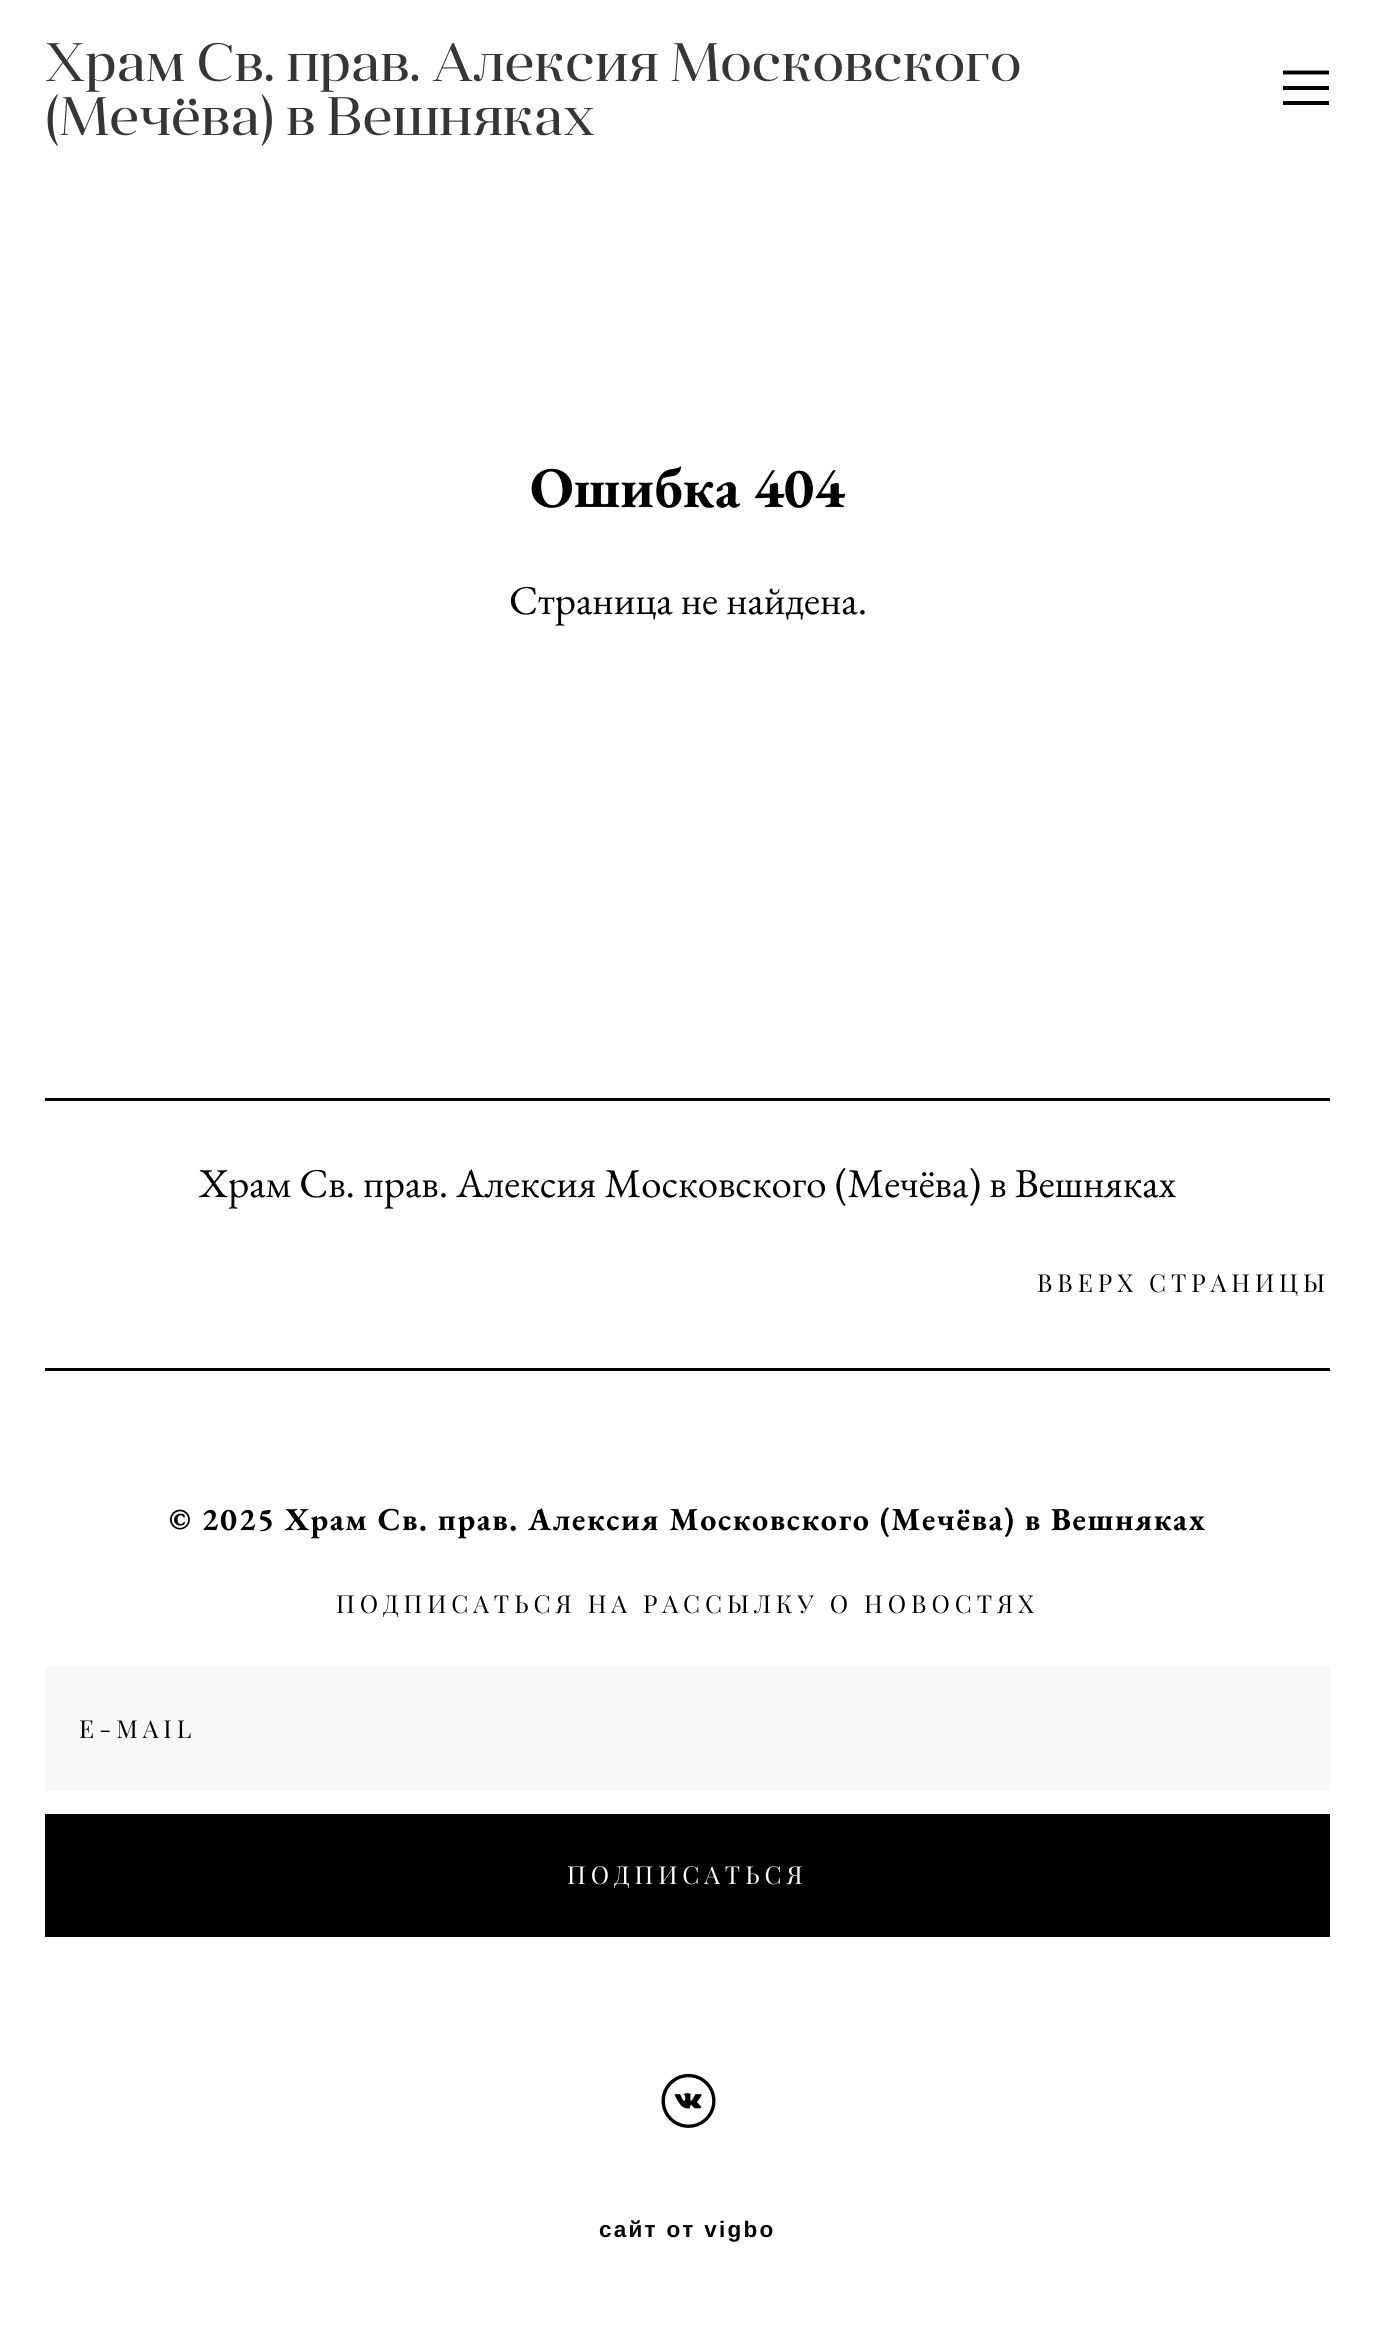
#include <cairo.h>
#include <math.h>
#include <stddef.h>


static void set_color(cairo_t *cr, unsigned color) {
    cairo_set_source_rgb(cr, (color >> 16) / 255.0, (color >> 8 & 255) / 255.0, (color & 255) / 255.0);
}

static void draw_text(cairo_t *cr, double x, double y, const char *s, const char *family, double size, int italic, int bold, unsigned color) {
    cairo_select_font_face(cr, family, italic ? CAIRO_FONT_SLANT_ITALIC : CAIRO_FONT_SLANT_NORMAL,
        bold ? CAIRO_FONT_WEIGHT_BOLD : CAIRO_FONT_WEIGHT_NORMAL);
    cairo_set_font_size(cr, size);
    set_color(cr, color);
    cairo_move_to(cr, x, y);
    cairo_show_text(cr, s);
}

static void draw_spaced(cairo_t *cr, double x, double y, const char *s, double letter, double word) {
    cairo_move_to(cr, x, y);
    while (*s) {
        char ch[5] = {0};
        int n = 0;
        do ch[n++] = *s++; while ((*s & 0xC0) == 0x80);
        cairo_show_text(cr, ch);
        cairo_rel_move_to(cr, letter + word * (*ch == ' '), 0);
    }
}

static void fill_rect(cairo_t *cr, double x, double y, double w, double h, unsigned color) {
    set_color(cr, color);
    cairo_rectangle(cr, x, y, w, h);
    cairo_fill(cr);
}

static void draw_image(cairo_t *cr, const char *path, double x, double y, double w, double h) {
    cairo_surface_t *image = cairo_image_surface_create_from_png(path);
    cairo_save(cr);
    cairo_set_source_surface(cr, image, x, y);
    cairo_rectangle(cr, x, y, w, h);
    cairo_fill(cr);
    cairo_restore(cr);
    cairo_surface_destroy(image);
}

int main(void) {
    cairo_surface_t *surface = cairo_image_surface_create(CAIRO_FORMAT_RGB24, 1373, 2336);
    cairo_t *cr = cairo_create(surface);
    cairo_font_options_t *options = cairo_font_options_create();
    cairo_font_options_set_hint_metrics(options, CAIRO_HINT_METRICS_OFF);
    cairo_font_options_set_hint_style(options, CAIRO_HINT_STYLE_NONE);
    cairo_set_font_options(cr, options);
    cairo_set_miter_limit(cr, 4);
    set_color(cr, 0xFFFFFF);
    cairo_paint(cr);
    draw_text(cr, 45, 81, "Храм Св. прав. Алексия Московского", "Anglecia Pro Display", 54, 0, 0, 0x383535);
    draw_text(cr, 45, 135, "(Мечёва) в Вешняках", "Anglecia Pro Display", 54, 0, 0, 0x383535);
    cairo_save(cr);
    cairo_rectangle(cr, 1283, 70, 47, 45);
    cairo_clip(cr);
    cairo_new_path(cr);
    cairo_move_to(cr, 1282.5, 72.5);
    cairo_line_to(cr, 1329, 72.5);
    set_color(cr, 0x000000);
    cairo_set_line_width(cr, 3.9);
    cairo_stroke(cr);
    cairo_restore(cr);
    fill_rect(cr, 1283, 86, 46, 4, 0x060606);
    fill_rect(cr, 1283, 101, 46, 4, 0x060606);
    draw_text(cr, 530, 507, "Ошибка 404", "EB Garamond", 57.5, 0, 1, 0x000000);
    draw_text(cr, 509, 614, "Страница не найдена.", "EB Garamond", 40.9, 0, 0, 0x000000);
    fill_rect(cr, 45, 1098, 1285, 3, 0x000000);
    draw_text(cr, 199, 1197, "Храм Св. прав. Алексия Московского (Мечёва) в Вешняках", "EB Garamond", 40.9, 0, 0, 0x000000);
    cairo_select_font_face(cr, "Playfair Display", CAIRO_FONT_SLANT_NORMAL, CAIRO_FONT_WEIGHT_NORMAL);
    cairo_set_font_size(cr, 24.75);
    draw_spaced(cr, 1037, 1292, "ВВЕРХ СТРАНИЦЫ", 4.95, 0);
    fill_rect(cr, 45, 1368, 1285, 3, 0x000000);
    cairo_select_font_face(cr, "EB Garamond", CAIRO_FONT_SLANT_NORMAL, CAIRO_FONT_WEIGHT_BOLD);
    cairo_set_font_size(cr, 32);
    draw_spaced(cr, 169, 1530, "© 2025 Храм Св. прав. Алексия Московского (Мечёва) в Вешняках", 1.6, 0);
    cairo_select_font_face(cr, "Playfair Display", CAIRO_FONT_SLANT_NORMAL, CAIRO_FONT_WEIGHT_NORMAL);
    cairo_set_font_size(cr, 24.75);
    draw_spaced(cr, 336, 1613, "ПОДПИСАТЬСЯ НА РАССЫЛКУ О НОВОСТЯХ", 4.95, 0);
    fill_rect(cr, 45, 1667, 1285, 124, 0xF7F7F7);
    set_color(cr, 0x000000);
    draw_spaced(cr, 79, 1738, "E-MAIL", 4.95, 0);
    fill_rect(cr, 45, 1814, 1285, 123, 0x000000);
    set_color(cr, 0xFFFFFF);
    draw_spaced(cr, 567, 1884, "ПОДПИСАТЬСЯ", 4.95, 0);
    draw_image(cr, "assets/img1.png", 661, 2073, 55, 55);
    cairo_select_font_face(cr, "Liberation Sans", CAIRO_FONT_SLANT_NORMAL, CAIRO_FONT_WEIGHT_BOLD);
    cairo_set_font_size(cr, 22.5);
    set_color(cr, 0x000000);
    draw_spaced(cr, 599, 2237, "сайт от vigbo", 2.25, 0);
    cairo_surface_write_to_png(surface, "output.png");
    cairo_font_options_destroy(options);
    cairo_destroy(cr);
    cairo_surface_destroy(surface);
    return 0;
}
